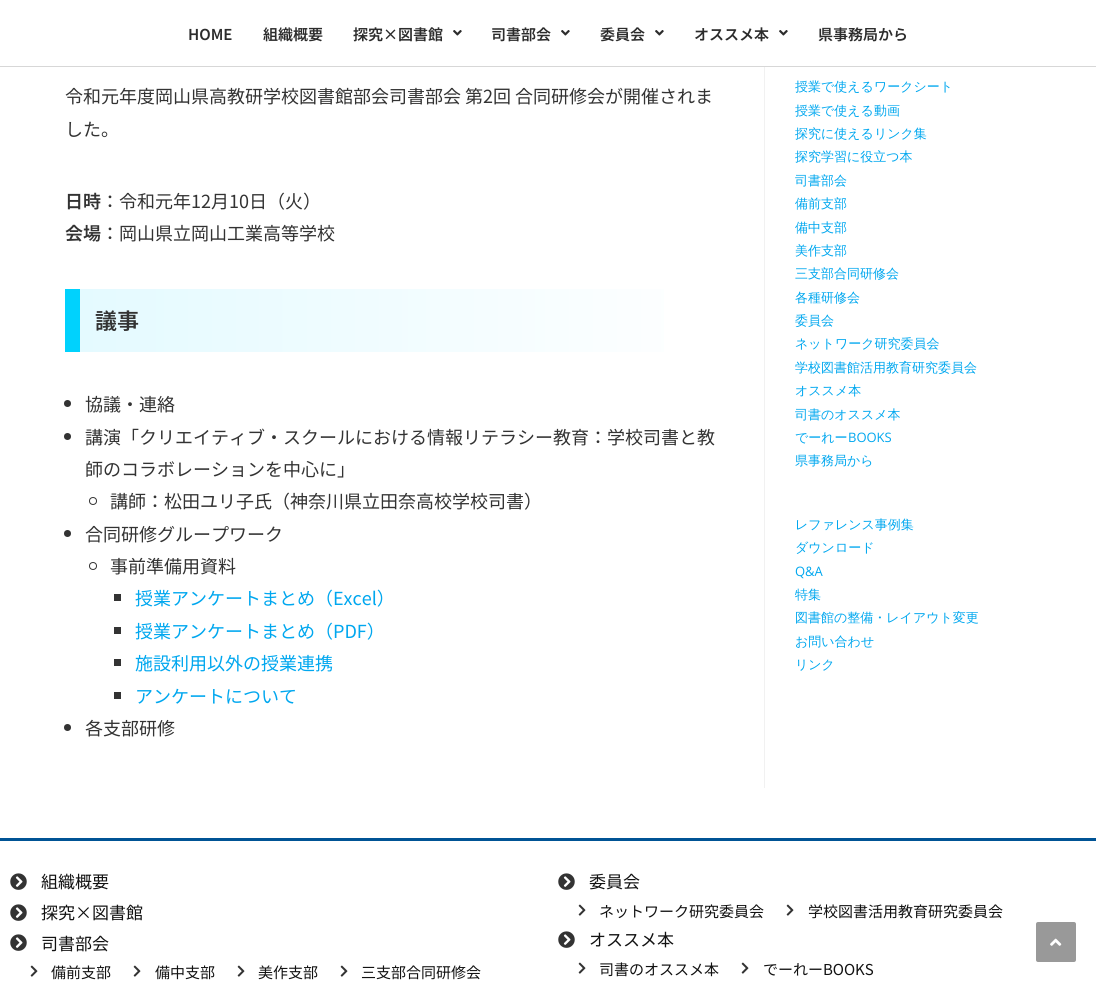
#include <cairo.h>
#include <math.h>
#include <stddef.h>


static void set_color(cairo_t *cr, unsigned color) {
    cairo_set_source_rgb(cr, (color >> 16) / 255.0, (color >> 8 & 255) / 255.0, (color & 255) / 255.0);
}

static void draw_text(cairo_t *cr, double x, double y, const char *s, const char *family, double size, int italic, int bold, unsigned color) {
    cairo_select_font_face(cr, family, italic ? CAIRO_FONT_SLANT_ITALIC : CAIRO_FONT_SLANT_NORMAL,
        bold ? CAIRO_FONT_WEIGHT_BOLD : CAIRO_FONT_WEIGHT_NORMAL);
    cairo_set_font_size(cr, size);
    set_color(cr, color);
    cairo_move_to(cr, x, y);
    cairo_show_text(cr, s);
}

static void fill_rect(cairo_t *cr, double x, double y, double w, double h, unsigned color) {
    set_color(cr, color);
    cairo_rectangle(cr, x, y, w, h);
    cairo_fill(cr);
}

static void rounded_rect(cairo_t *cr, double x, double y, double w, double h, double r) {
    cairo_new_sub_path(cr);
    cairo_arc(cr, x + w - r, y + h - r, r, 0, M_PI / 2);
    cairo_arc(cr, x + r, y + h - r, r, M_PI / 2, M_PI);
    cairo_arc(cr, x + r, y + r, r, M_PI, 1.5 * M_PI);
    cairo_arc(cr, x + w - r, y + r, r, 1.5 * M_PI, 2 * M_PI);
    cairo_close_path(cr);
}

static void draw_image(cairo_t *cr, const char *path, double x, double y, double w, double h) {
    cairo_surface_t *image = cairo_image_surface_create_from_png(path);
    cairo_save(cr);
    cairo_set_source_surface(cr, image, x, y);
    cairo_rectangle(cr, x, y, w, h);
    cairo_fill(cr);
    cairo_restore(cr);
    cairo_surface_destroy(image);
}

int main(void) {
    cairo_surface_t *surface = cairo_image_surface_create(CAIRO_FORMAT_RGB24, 1096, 982);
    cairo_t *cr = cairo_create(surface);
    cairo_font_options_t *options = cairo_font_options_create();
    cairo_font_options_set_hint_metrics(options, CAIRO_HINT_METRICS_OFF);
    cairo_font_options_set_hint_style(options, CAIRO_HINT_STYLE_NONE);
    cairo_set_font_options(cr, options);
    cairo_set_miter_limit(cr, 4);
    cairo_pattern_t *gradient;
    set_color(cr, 0xFFFFFF);
    cairo_paint(cr);
    fill_rect(cr, 0, 66, 1096, 1, 0xD7D7D7);
    draw_text(cr, 188, 40, "HOME", "Noto Sans JP SemiBold", 15, 0, 0, 0x2C2C2C);
    draw_text(cr, 263, 40, "組織概要", "Noto Sans JP SemiBold", 15, 0, 0, 0x2C2C2C);
    draw_text(cr, 353, 40, "探究×図書館", "Noto Sans JP SemiBold", 15, 0, 0, 0x2C2C2C);
    draw_image(cr, "assets/img1.png", 453, 30, 9, 6);
    draw_text(cr, 491, 40, "司書部会", "Noto Sans JP SemiBold", 15, 0, 0, 0x2C2C2C);
    draw_image(cr, "assets/img1.png", 561, 30, 9, 6);
    draw_text(cr, 600, 40, "委員会", "Noto Sans JP SemiBold", 15, 0, 0, 0x2C2C2C);
    draw_image(cr, "assets/img1.png", 655, 30, 9, 6);
    draw_text(cr, 694, 40, "オススメ本", "Noto Sans JP SemiBold", 15, 0, 0, 0x2C2C2C);
    draw_image(cr, "assets/img1.png", 779, 30, 9, 6);
    draw_text(cr, 818, 40, "県事務局から", "Noto Sans JP SemiBold", 15, 0, 0, 0x2C2C2C);
    fill_rect(cr, 764, 67, 1, 721, 0xF1F1F1);
    draw_text(cr, 65, 103, "令和元年度岡山県高教研学校図書館部会司書部会 第2回 合同研修会が開催されま", "Noto Sans JP", 18, 0, 0, 0x333333);
    draw_text(cr, 65, 136, "した。", "Noto Sans JP", 18, 0, 0, 0x333333);
    draw_text(cr, 65, 208, "日時", "Noto Sans JP SemiBold", 18, 0, 0, 0x333333);
    draw_text(cr, 101, 208, "：令和元年12月10日（火）", "Noto Sans JP", 18, 0, 0, 0x333333);
    draw_text(cr, 65, 240, "会場", "Noto Sans JP SemiBold", 18, 0, 0, 0x333333);
    draw_text(cr, 101, 240, "：岡山県立岡山工業高等学校", "Noto Sans JP", 18, 0, 0, 0x333333);
    gradient = cairo_pattern_create_linear(80, 321, 724, 321);
    cairo_pattern_add_color_stop_rgba(gradient, 0, 0.894, 0.98, 1, 1);
    cairo_pattern_add_color_stop_rgba(gradient, 1, 1, 1, 1, 1);
    cairo_set_source(cr, gradient);
    cairo_pattern_destroy(gradient);
    cairo_rectangle(cr, 80, 289, 584, 63);
    cairo_fill(cr);
    fill_rect(cr, 65, 289, 15, 63, 0x00D2FD);
    draw_text(cr, 95, 329, "議事", "Noto Sans JP SemiBold", 22, 0, 0, 0x333333);
    cairo_new_path(cr);
    cairo_arc(cr, 67.5, 403.5, 3.5, 0, 2 * M_PI);
    cairo_fill(cr);
    draw_text(cr, 85, 411, "協議・連絡", "Noto Sans JP", 18, 0, 0, 0x333333);
    cairo_new_path(cr);
    cairo_arc(cr, 67.5, 436.5, 3.5, 0, 2 * M_PI);
    cairo_fill(cr);
    draw_text(cr, 85, 444, "講演「クリエイティブ・スクールにおける情報リテラシー教育：学校司書と教", "Noto Sans JP", 18, 0, 0, 0x333333);
    draw_text(cr, 85, 476, "師のコラボレーションを中心に」", "Noto Sans JP", 18, 0, 0, 0x333333);
    cairo_new_path(cr);
    cairo_arc(cr, 93, 501, 3.5, 0, 2 * M_PI);
    cairo_set_line_width(cr, 1);
    cairo_stroke(cr);
    draw_text(cr, 110, 508, "講師：松田ユリ子氏（神奈川県立田奈高校学校司書）", "Noto Sans JP", 18, 0, 0, 0x333333);
    cairo_new_path(cr);
    cairo_arc(cr, 67.5, 533.5, 3.5, 0, 2 * M_PI);
    cairo_fill(cr);
    draw_text(cr, 85, 541, "合同研修グループワーク", "Noto Sans JP", 18, 0, 0, 0x333333);
    cairo_new_path(cr);
    cairo_arc(cr, 93, 566, 3.5, 0, 2 * M_PI);
    cairo_stroke(cr);
    draw_text(cr, 110, 573, "事前準備用資料", "Noto Sans JP", 18, 0, 0, 0x333333);
    fill_rect(cr, 114, 594, 7, 7, 0x333333);
    draw_text(cr, 135, 605, "授業アンケートまとめ（Excel）", "Noto Sans JP", 18, 0, 0, 0x00A7EF);
    fill_rect(cr, 114, 627, 7, 7, 0x333333);
    draw_text(cr, 135, 638, "授業アンケートまとめ（PDF）", "Noto Sans JP", 18, 0, 0, 0x00A7EF);
    fill_rect(cr, 114, 659, 7, 7, 0x333333);
    draw_text(cr, 135, 670, "施設利用以外の授業連携", "Noto Sans JP", 18, 0, 0, 0x00A7EF);
    fill_rect(cr, 114, 692, 7, 7, 0x333333);
    draw_text(cr, 135, 703, "アンケートについて", "Noto Sans JP", 18, 0, 0, 0x00A7EF);
    set_color(cr, 0x333333);
    cairo_new_path(cr);
    cairo_arc(cr, 67.5, 727.5, 3.5, 0, 2 * M_PI);
    cairo_fill(cr);
    draw_text(cr, 85, 735, "各支部研修", "Noto Sans JP", 18, 0, 0, 0x333333);
    draw_text(cr, 795, 91, "授業で使えるワークシート", "WenQuanYi Zen Hei Medium", 13, 0, 0, 0x00A7EF);
    draw_text(cr, 795, 115, "授業で使える動画", "WenQuanYi Zen Hei Medium", 13, 0, 0, 0x00A7EF);
    draw_text(cr, 795, 138, "探究に使えるリンク集", "WenQuanYi Zen Hei Medium", 13, 0, 0, 0x00A7EF);
    draw_text(cr, 795, 161, "探究学習に役立つ本", "WenQuanYi Zen Hei Medium", 13, 0, 0, 0x00A7EF);
    draw_text(cr, 795, 185, "司書部会", "WenQuanYi Zen Hei Medium", 13, 0, 0, 0x00A7EF);
    draw_text(cr, 795, 208, "備前支部", "WenQuanYi Zen Hei Medium", 13, 0, 0, 0x00A7EF);
    draw_text(cr, 795, 232, "備中支部", "WenQuanYi Zen Hei Medium", 13, 0, 0, 0x00A7EF);
    draw_text(cr, 795, 255, "美作支部", "WenQuanYi Zen Hei Medium", 13, 0, 0, 0x00A7EF);
    draw_text(cr, 795, 278, "三支部合同研修会", "WenQuanYi Zen Hei Medium", 13, 0, 0, 0x00A7EF);
    draw_text(cr, 795, 302, "各種研修会", "WenQuanYi Zen Hei Medium", 13, 0, 0, 0x00A7EF);
    draw_text(cr, 795, 325, "委員会", "WenQuanYi Zen Hei Medium", 13, 0, 0, 0x00A7EF);
    draw_text(cr, 795, 348, "ネットワーク研究委員会", "WenQuanYi Zen Hei Medium", 13, 0, 0, 0x00A7EF);
    draw_text(cr, 795, 372, "学校図書館活用教育研究委員会", "WenQuanYi Zen Hei Medium", 13, 0, 0, 0x00A7EF);
    draw_text(cr, 795, 395, "オススメ本", "WenQuanYi Zen Hei Medium", 13, 0, 0, 0x00A7EF);
    draw_text(cr, 795, 419, "司書のオススメ本", "WenQuanYi Zen Hei Medium", 13, 0, 0, 0x00A7EF);
    draw_text(cr, 795, 442, "でーれー", "WenQuanYi Zen Hei Medium", 13, 0, 0, 0x00A7EF);
    draw_text(cr, 848, 442, "BOOKS", "Open Sans", 13, 0, 0, 0x00A7EF);
    draw_text(cr, 795, 465, "県事務局から", "WenQuanYi Zen Hei Medium", 13, 0, 0, 0x00A7EF);
    draw_text(cr, 795, 529, "レファレンス事例集", "WenQuanYi Zen Hei Medium", 13, 0, 0, 0x00A7EF);
    draw_text(cr, 795, 552, "ダウンロード", "WenQuanYi Zen Hei Medium", 13, 0, 0, 0x00A7EF);
    draw_text(cr, 795, 576, "Q&A", "Open Sans", 13, 0, 0, 0x00A7EF);
    draw_text(cr, 795, 599, "特集", "WenQuanYi Zen Hei Medium", 13, 0, 0, 0x00A7EF);
    draw_text(cr, 795, 622, "図書館の整備・レイアウト変更", "WenQuanYi Zen Hei Medium", 13, 0, 0, 0x00A7EF);
    draw_text(cr, 795, 646, "お問い合わせ", "WenQuanYi Zen Hei Medium", 13, 0, 0, 0x00A7EF);
    draw_text(cr, 795, 669, "リンク", "WenQuanYi Zen Hei Medium", 13, 0, 0, 0x00A7EF);
    fill_rect(cr, 0, 838, 1096, 3, 0x005395);
    draw_image(cr, "assets/img2.png", 10, 873, 17, 17);
    draw_text(cr, 41, 888, "組織概要", "Noto Sans JP", 17, 0, 0, 0x121212);
    draw_image(cr, "assets/img2.png", 10, 904, 17, 17);
    draw_text(cr, 41, 919, "探究×図書館", "Noto Sans JP", 17, 0, 0, 0x121212);
    draw_image(cr, "assets/img2.png", 10, 934, 17, 17);
    draw_text(cr, 41, 950, "司書部会", "Noto Sans JP", 17, 0, 0, 0x121212);
    draw_image(cr, "assets/img3.png", 30, 965, 8, 12);
    draw_text(cr, 51, 978, "備前支部", "Noto Sans JP", 15, 0, 0, 0x121212);
    draw_image(cr, "assets/img3.png", 133, 965, 8, 12);
    draw_text(cr, 155, 978, "備中支部", "Noto Sans JP", 15, 0, 0, 0x121212);
    draw_image(cr, "assets/img3.png", 237, 965, 8, 12);
    draw_text(cr, 258, 978, "美作支部", "Noto Sans JP", 15, 0, 0, 0x121212);
    draw_image(cr, "assets/img3.png", 340, 965, 8, 12);
    draw_text(cr, 361, 978, "三支部合同研修会", "Noto Sans JP", 15, 0, 0, 0x121212);
    draw_image(cr, "assets/img2.png", 558, 873, 17, 17);
    draw_text(cr, 589, 888, "委員会", "Noto Sans JP", 17, 0, 0, 0x121212);
    draw_image(cr, "assets/img3.png", 578, 904, 8, 12);
    draw_text(cr, 599, 917, "ネットワーク研究委員会", "Noto Sans JP", 15, 0, 0, 0x121212);
    draw_image(cr, "assets/img3.png", 786, 904, 8, 12);
    draw_text(cr, 808, 917, "学校図書活用教育研究委員会", "Noto Sans JP", 15, 0, 0, 0x121212);
    draw_image(cr, "assets/img2.png", 558, 931, 17, 17);
    draw_text(cr, 589, 946, "オススメ本", "Noto Sans JP", 17, 0, 0, 0x121212);
    draw_image(cr, "assets/img3.png", 578, 962, 8, 12);
    draw_text(cr, 599, 975, "司書のオススメ本", "Noto Sans JP", 15, 0, 0, 0x121212);
    draw_image(cr, "assets/img3.png", 741, 962, 8, 12);
    draw_text(cr, 763, 975, "でーれーBOOKS", "Noto Sans JP", 15, 0, 0, 0x121212);
    set_color(cr, 0x999999);
    rounded_rect(cr, 1036, 922, 40, 40, 2);
    cairo_fill(cr);
    draw_image(cr, "assets/img4.png", 1050, 938, 12, 8);
    cairo_surface_write_to_png(surface, "output.png");
    cairo_font_options_destroy(options);
    cairo_destroy(cr);
    cairo_surface_destroy(surface);
    return 0;
}
